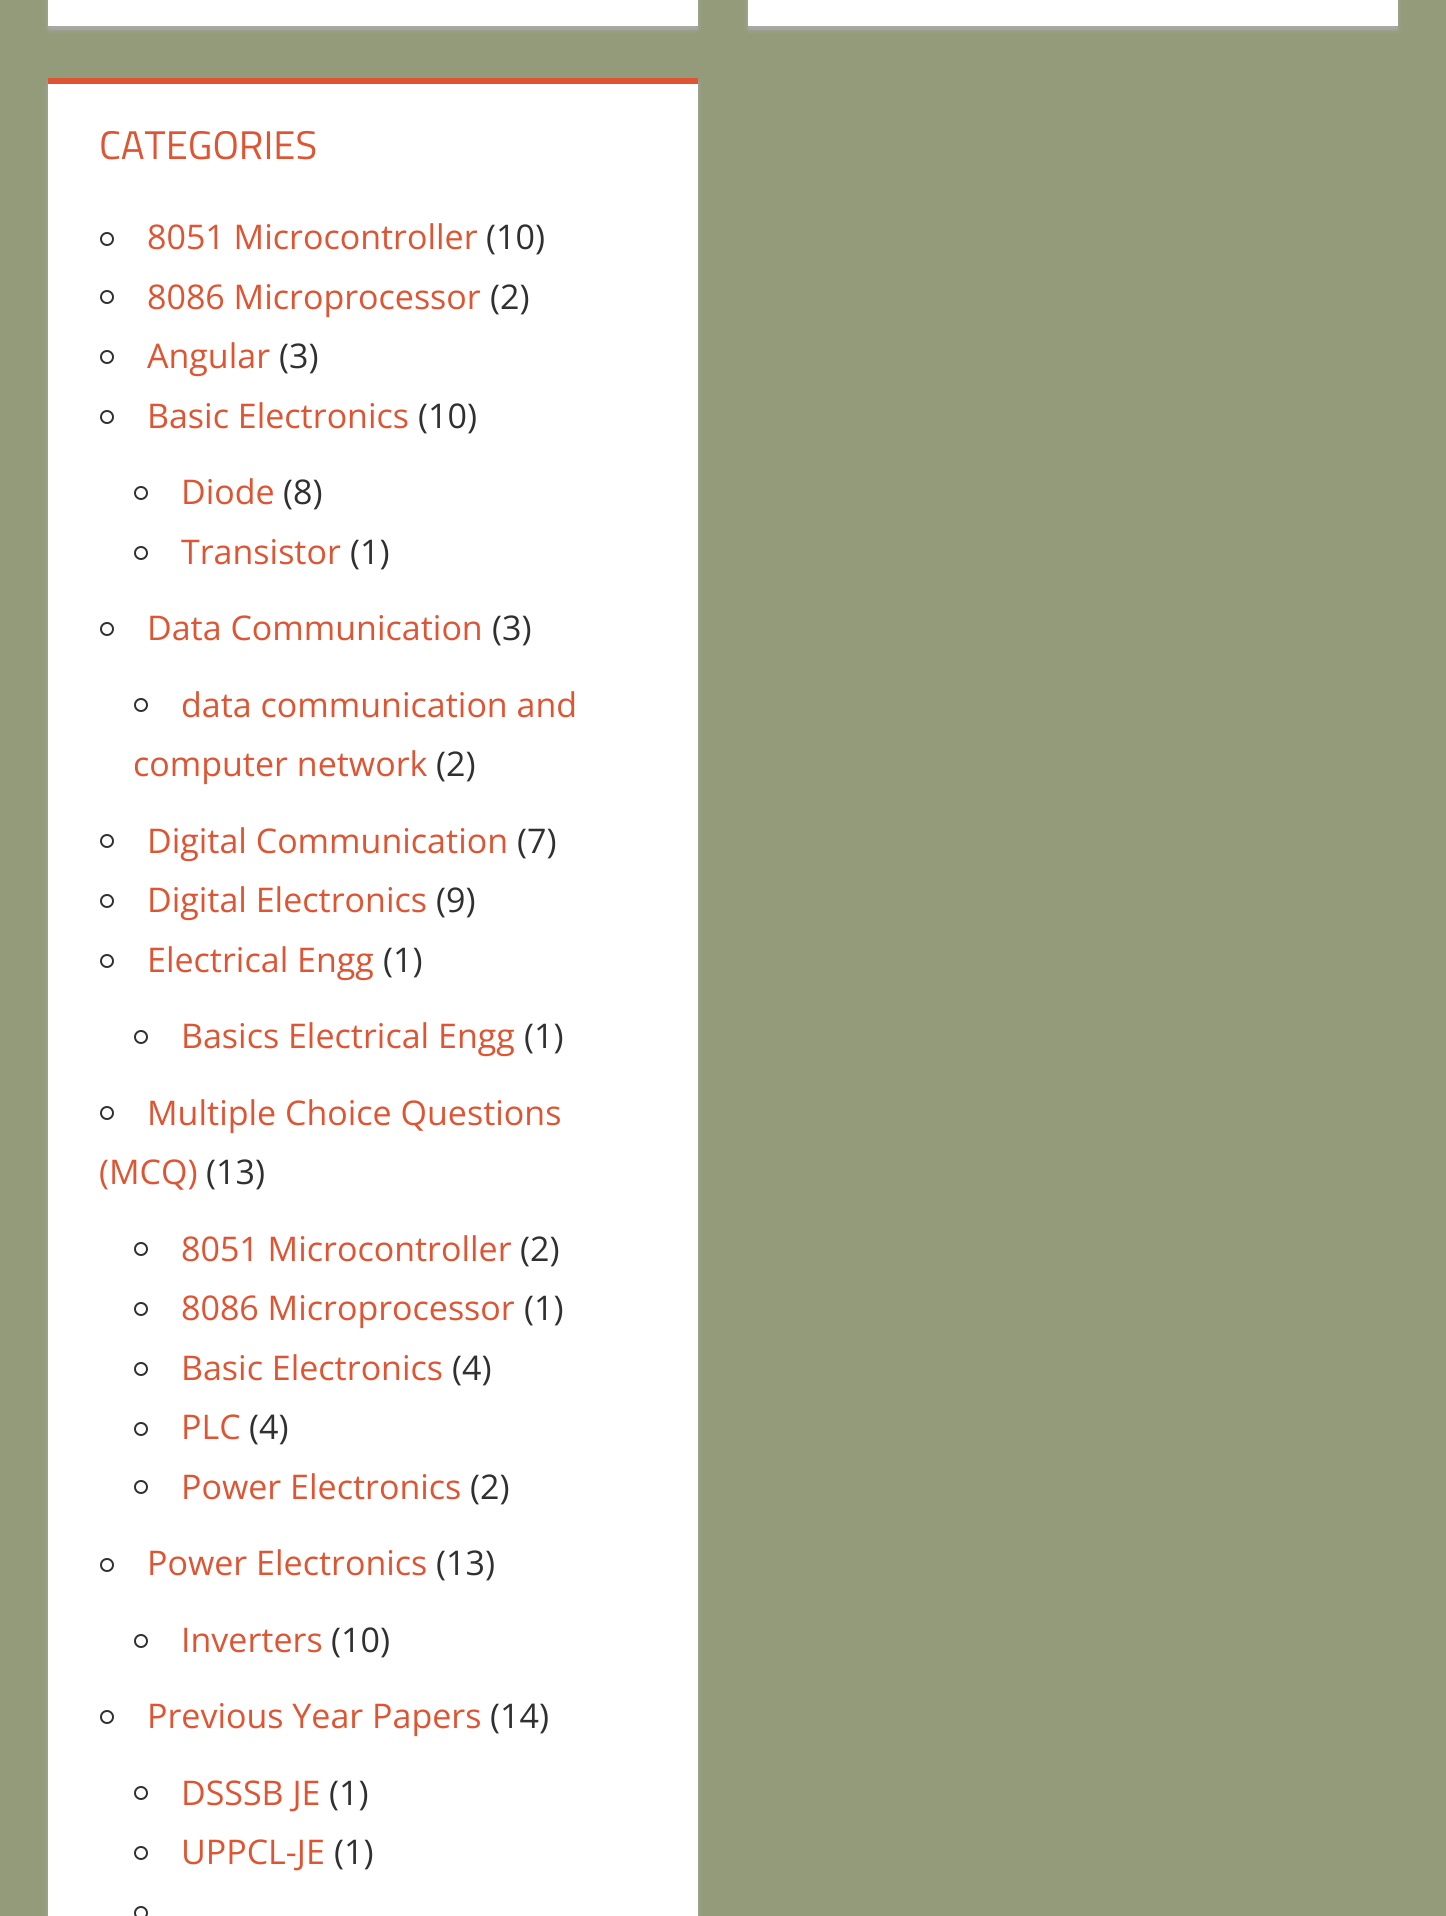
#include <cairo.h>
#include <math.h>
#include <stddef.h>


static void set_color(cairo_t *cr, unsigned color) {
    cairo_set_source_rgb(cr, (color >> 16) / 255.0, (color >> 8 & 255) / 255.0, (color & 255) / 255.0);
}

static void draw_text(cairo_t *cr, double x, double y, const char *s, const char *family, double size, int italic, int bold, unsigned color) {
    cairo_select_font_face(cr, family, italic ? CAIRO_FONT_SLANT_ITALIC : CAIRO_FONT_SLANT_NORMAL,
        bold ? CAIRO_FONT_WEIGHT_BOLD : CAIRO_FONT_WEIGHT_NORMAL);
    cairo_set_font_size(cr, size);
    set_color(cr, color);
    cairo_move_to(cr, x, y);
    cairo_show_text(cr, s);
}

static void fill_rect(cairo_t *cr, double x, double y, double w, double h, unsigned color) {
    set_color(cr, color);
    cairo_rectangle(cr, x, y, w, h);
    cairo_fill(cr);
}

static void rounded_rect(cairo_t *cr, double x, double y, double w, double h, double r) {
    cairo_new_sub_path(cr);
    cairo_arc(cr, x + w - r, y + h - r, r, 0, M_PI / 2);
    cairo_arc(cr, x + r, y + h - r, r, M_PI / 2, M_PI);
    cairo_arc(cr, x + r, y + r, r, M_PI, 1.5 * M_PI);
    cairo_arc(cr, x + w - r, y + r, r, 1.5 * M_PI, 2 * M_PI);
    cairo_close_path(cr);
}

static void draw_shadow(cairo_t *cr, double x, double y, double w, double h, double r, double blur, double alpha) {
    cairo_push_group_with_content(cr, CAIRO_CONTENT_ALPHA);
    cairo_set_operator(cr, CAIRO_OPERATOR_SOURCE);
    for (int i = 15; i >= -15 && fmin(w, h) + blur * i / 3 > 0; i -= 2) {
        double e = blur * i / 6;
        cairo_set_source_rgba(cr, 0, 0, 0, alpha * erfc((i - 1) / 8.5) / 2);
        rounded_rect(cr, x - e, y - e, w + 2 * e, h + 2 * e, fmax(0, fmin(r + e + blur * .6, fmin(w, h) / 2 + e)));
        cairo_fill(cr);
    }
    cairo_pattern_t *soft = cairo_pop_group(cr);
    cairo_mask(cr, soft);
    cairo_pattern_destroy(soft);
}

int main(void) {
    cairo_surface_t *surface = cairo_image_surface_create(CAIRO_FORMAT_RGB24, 1446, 1916);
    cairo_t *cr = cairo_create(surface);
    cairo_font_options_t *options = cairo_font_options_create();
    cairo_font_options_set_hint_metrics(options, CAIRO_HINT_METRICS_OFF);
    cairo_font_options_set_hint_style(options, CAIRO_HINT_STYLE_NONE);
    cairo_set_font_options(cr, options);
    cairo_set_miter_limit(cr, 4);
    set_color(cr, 0x939B7A);
    cairo_paint(cr);
    set_color(cr, 0xAAAAAA);
    draw_shadow(cr, 48, -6, 650, 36, 0, 2, 1);
    fill_rect(cr, 48, 0, 650, 26, 0xFFFFFF);
    set_color(cr, 0xAAAAAA);
    draw_shadow(cr, 748, -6, 650, 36, 0, 2, 1);
    fill_rect(cr, 748, 0, 650, 26, 0xFFFFFF);
    set_color(cr, 0xAAAAAA);
    draw_shadow(cr, 48, 82, 650, 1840, 0, 2, 1);
    fill_rect(cr, 48, 84, 650, 1832, 0xFFFFFF);
    fill_rect(cr, 48, 78, 650, 6, 0xDD5533);
    draw_text(cr, 99, 159, "CATEGORIES", "Titillium Web", 40, 0, 0, 0xDD5533);
    cairo_new_path(cr);
    cairo_arc(cr, 107, 239, 6, 0, 2 * M_PI);
    set_color(cr, 0x303030);
    cairo_stroke(cr);
    draw_text(cr, 147, 249, "8051 Microcontroller", "Open Sans", 34, 0, 0, 0xDD5533);
    draw_text(cr, 486, 249, "(10)", "Open Sans", 34, 0, 0, 0x303030);
    cairo_new_path(cr);
    cairo_arc(cr, 107, 297, 6, 0, 2 * M_PI);
    cairo_stroke(cr);
    draw_text(cr, 147, 309, "8086 Microprocessor", "Open Sans", 34, 0, 0, 0xDD5533);
    draw_text(cr, 490, 309, "(2)", "Open Sans", 34, 0, 0, 0x303030);
    cairo_new_path(cr);
    cairo_arc(cr, 107, 357, 6, 0, 2 * M_PI);
    cairo_stroke(cr);
    draw_text(cr, 147, 368, "Angular", "Open Sans", 34, 0, 0, 0xDD5533);
    draw_text(cr, 279, 368, "(3)", "Open Sans", 34, 0, 0, 0x303030);
    cairo_new_path(cr);
    cairo_arc(cr, 107, 417, 6, 0, 2 * M_PI);
    cairo_stroke(cr);
    draw_text(cr, 147, 428, "Basic Electronics", "Open Sans", 34, 0, 0, 0xDD5533);
    draw_text(cr, 418, 428, "(10)", "Open Sans", 34, 0, 0, 0x303030);
    cairo_new_path(cr);
    cairo_arc(cr, 141, 493, 6, 0, 2 * M_PI);
    cairo_stroke(cr);
    draw_text(cr, 181, 504, "Diode", "Open Sans", 34, 0, 0, 0xDD5533);
    draw_text(cr, 283, 504, "(8)", "Open Sans", 34, 0, 0, 0x303030);
    cairo_new_path(cr);
    cairo_arc(cr, 141, 553, 6, 0, 2 * M_PI);
    cairo_stroke(cr);
    draw_text(cr, 181, 564, "Transistor", "Open Sans", 34, 0, 0, 0xDD5533);
    draw_text(cr, 350, 564, "(1)", "Open Sans", 34, 0, 0, 0x303030);
    cairo_new_path(cr);
    cairo_arc(cr, 107, 629, 6, 0, 2 * M_PI);
    cairo_stroke(cr);
    draw_text(cr, 147, 640, "Data Communication", "Open Sans", 34, 0, 0, 0xDD5533);
    draw_text(cr, 492, 640, "(3)", "Open Sans", 34, 0, 0, 0x303030);
    cairo_new_path(cr);
    cairo_arc(cr, 141, 705, 6, 0, 2 * M_PI);
    cairo_stroke(cr);
    draw_text(cr, 181, 717, "data communication and", "Open Sans", 34, 0, 0, 0xDD5533);
    draw_text(cr, 133, 776, "computer network", "Open Sans", 34, 0, 0, 0xDD5533);
    draw_text(cr, 436, 776, "(2)", "Open Sans", 34, 0, 0, 0x303030);
    cairo_new_path(cr);
    cairo_arc(cr, 107, 841, 6, 0, 2 * M_PI);
    cairo_stroke(cr);
    draw_text(cr, 147, 853, "Digital Communication", "Open Sans", 34, 0, 0, 0xDD5533);
    draw_text(cr, 517, 853, "(7)", "Open Sans", 34, 0, 0, 0x303030);
    cairo_new_path(cr);
    cairo_arc(cr, 107, 901, 6, 0, 2 * M_PI);
    cairo_stroke(cr);
    draw_text(cr, 147, 912, "Digital Electronics", "Open Sans", 34, 0, 0, 0xDD5533);
    draw_text(cr, 436, 912, "(9)", "Open Sans", 34, 0, 0, 0x303030);
    cairo_new_path(cr);
    cairo_arc(cr, 107, 961, 6, 0, 2 * M_PI);
    cairo_stroke(cr);
    draw_text(cr, 147, 972, "Electrical Engg", "Open Sans", 34, 0, 0, 0xDD5533);
    draw_text(cr, 383, 972, "(1)", "Open Sans", 34, 0, 0, 0x303030);
    cairo_new_path(cr);
    cairo_arc(cr, 141, 1037, 6, 0, 2 * M_PI);
    cairo_stroke(cr);
    draw_text(cr, 181, 1048, "Basics Electrical Engg", "Open Sans", 34, 0, 0, 0xDD5533);
    draw_text(cr, 524, 1048, "(1)", "Open Sans", 34, 0, 0, 0x303030);
    cairo_new_path(cr);
    cairo_arc(cr, 107, 1113, 6, 0, 2 * M_PI);
    cairo_stroke(cr);
    draw_text(cr, 147, 1125, "Multiple Choice Questions", "Open Sans", 34, 0, 0, 0xDD5533);
    draw_text(cr, 99, 1184, "(MCQ)", "Open Sans", 34, 0, 0, 0xDD5533);
    draw_text(cr, 206, 1184, "(13)", "Open Sans", 34, 0, 0, 0x303030);
    cairo_new_path(cr);
    cairo_arc(cr, 141, 1249, 6, 0, 2 * M_PI);
    cairo_stroke(cr);
    draw_text(cr, 181, 1261, "8051 Microcontroller", "Open Sans", 34, 0, 0, 0xDD5533);
    draw_text(cr, 520, 1261, "(2)", "Open Sans", 34, 0, 0, 0x303030);
    cairo_new_path(cr);
    cairo_arc(cr, 141, 1309, 6, 0, 2 * M_PI);
    cairo_stroke(cr);
    draw_text(cr, 181, 1320, "8086 Microprocessor", "Open Sans", 34, 0, 0, 0xDD5533);
    draw_text(cr, 524, 1320, "(1)", "Open Sans", 34, 0, 0, 0x303030);
    cairo_new_path(cr);
    cairo_arc(cr, 141, 1369, 6, 0, 2 * M_PI);
    cairo_stroke(cr);
    draw_text(cr, 181, 1380, "Basic Electronics", "Open Sans", 34, 0, 0, 0xDD5533);
    draw_text(cr, 452, 1380, "(4)", "Open Sans", 34, 0, 0, 0x303030);
    cairo_new_path(cr);
    cairo_arc(cr, 141, 1429, 6, 0, 2 * M_PI);
    cairo_stroke(cr);
    draw_text(cr, 181, 1439, "PLC", "Open Sans", 34, 0, 0, 0xDD5533);
    draw_text(cr, 249, 1439, "(4)", "Open Sans", 34, 0, 0, 0x303030);
    cairo_new_path(cr);
    cairo_arc(cr, 141, 1487, 6, 0, 2 * M_PI);
    cairo_stroke(cr);
    draw_text(cr, 181, 1499, "Power Electronics", "Open Sans", 34, 0, 0, 0xDD5533);
    draw_text(cr, 470, 1499, "(2)", "Open Sans", 34, 0, 0, 0x303030);
    cairo_new_path(cr);
    cairo_arc(cr, 107, 1565, 6, 0, 2 * M_PI);
    cairo_stroke(cr);
    draw_text(cr, 147, 1575, "Power Electronics", "Open Sans", 34, 0, 0, 0xDD5533);
    draw_text(cr, 436, 1575, "(13)", "Open Sans", 34, 0, 0, 0x303030);
    cairo_new_path(cr);
    cairo_arc(cr, 141, 1641, 6, 0, 2 * M_PI);
    cairo_stroke(cr);
    draw_text(cr, 181, 1652, "Inverters", "Open Sans", 34, 0, 0, 0xDD5533);
    draw_text(cr, 331, 1652, "(10)", "Open Sans", 34, 0, 0, 0x303030);
    cairo_new_path(cr);
    cairo_arc(cr, 107, 1717, 6, 0, 2 * M_PI);
    cairo_stroke(cr);
    draw_text(cr, 147, 1728, "Previous Year Papers", "Open Sans", 34, 0, 0, 0xDD5533);
    draw_text(cr, 490, 1728, "(14)", "Open Sans", 34, 0, 0, 0x303030);
    cairo_new_path(cr);
    cairo_arc(cr, 141, 1793, 6, 0, 2 * M_PI);
    cairo_stroke(cr);
    draw_text(cr, 181, 1805, "DSSSB JE", "Open Sans", 34, 0, 0, 0xDD5533);
    draw_text(cr, 329, 1805, "(1)", "Open Sans", 34, 0, 0, 0x303030);
    cairo_new_path(cr);
    cairo_arc(cr, 141, 1853, 6, 0, 2 * M_PI);
    cairo_stroke(cr);
    draw_text(cr, 181, 1864, "UPPCL-JE", "Open Sans", 34, 0, 0, 0xDD5533);
    draw_text(cr, 334, 1864, "(1)", "Open Sans", 34, 0, 0, 0x303030);
    cairo_new_path(cr);
    cairo_arc(cr, 141, 1913, 6, 0, 2 * M_PI);
    cairo_stroke(cr);
    cairo_surface_write_to_png(surface, "output.png");
    cairo_font_options_destroy(options);
    cairo_destroy(cr);
    cairo_surface_destroy(surface);
    return 0;
}
